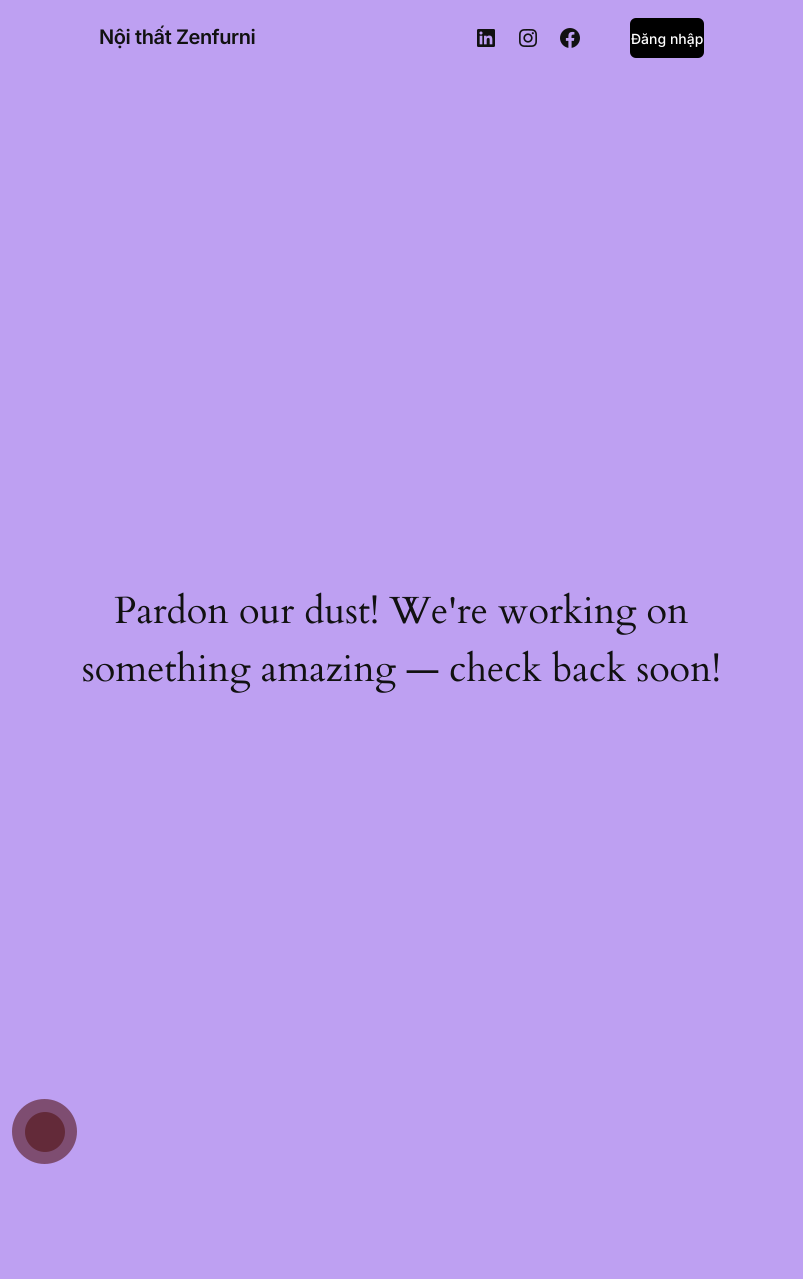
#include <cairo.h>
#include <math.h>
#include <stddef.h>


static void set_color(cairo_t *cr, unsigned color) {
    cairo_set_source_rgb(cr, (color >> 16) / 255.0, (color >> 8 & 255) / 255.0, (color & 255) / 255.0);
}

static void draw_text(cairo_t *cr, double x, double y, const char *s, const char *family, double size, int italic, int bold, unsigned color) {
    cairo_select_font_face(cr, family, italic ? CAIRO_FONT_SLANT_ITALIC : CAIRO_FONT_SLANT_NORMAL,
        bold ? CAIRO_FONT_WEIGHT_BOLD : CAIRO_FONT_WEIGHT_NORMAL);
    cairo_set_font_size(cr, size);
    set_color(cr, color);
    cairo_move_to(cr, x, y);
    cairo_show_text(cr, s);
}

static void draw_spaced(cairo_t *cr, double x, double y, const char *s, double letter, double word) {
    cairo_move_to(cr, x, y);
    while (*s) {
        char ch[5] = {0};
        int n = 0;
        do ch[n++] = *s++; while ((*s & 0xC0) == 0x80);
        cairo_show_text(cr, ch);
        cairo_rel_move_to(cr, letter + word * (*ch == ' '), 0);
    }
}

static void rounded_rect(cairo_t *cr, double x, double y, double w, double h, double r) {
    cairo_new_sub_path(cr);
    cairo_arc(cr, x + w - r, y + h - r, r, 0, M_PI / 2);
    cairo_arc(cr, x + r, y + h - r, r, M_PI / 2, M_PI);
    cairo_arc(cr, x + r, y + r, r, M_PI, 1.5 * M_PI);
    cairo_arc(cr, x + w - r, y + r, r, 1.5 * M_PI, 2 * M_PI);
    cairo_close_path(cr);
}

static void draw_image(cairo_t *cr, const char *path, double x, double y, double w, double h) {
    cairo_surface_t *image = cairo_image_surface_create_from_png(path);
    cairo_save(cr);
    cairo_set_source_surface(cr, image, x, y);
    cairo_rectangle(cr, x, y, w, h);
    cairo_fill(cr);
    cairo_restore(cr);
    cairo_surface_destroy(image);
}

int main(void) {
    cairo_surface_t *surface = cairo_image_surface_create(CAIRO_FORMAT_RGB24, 803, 1279);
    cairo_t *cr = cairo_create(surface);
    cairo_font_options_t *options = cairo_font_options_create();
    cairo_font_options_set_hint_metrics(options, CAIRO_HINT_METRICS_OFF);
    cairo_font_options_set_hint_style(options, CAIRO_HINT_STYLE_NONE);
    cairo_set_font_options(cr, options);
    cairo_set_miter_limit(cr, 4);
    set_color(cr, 0xBEA0F2);
    cairo_paint(cr);
    cairo_select_font_face(cr, "Inter SemiBold", CAIRO_FONT_SLANT_NORMAL, CAIRO_FONT_WEIGHT_NORMAL);
    cairo_set_font_size(cr, 20);
    set_color(cr, 0x111111);
    draw_spaced(cr, 99, 44, "Nội thất Zenfurni", -0.4, 0);
    draw_image(cr, "assets/img1.png", 477, 29, 18, 18);
    draw_image(cr, "assets/img2.png", 519, 29, 18, 18);
    draw_image(cr, "assets/img3.png", 560, 28, 20, 20);
    set_color(cr, 0x000000);
    rounded_rect(cr, 630, 18, 74, 40, 6);
    cairo_fill(cr);
    draw_text(cr, 631, 44, "Đăng nhập", "Inter Medium", 14, 0, 0, 0xFFFFFF);
    draw_text(cr, 114, 623, "Pardon our dust! We're working on", "Cardo", 37.9, 0, 0, 0x111111);
    draw_text(cr, 82, 681, "something amazing — check back soon!", "Cardo", 37.9, 0, 0, 0x111111);
    set_color(cr, 0x7E4D71);
    cairo_new_path(cr);
    cairo_arc(cr, 44.5, 1131.5, 32.5, 0, 2 * M_PI);
    cairo_fill(cr);
    set_color(cr, 0x632A39);
    cairo_arc(cr, 45, 1132, 20, 0, 2 * M_PI);
    cairo_fill(cr);
    cairo_surface_write_to_png(surface, "output.png");
    cairo_font_options_destroy(options);
    cairo_destroy(cr);
    cairo_surface_destroy(surface);
    return 0;
}
